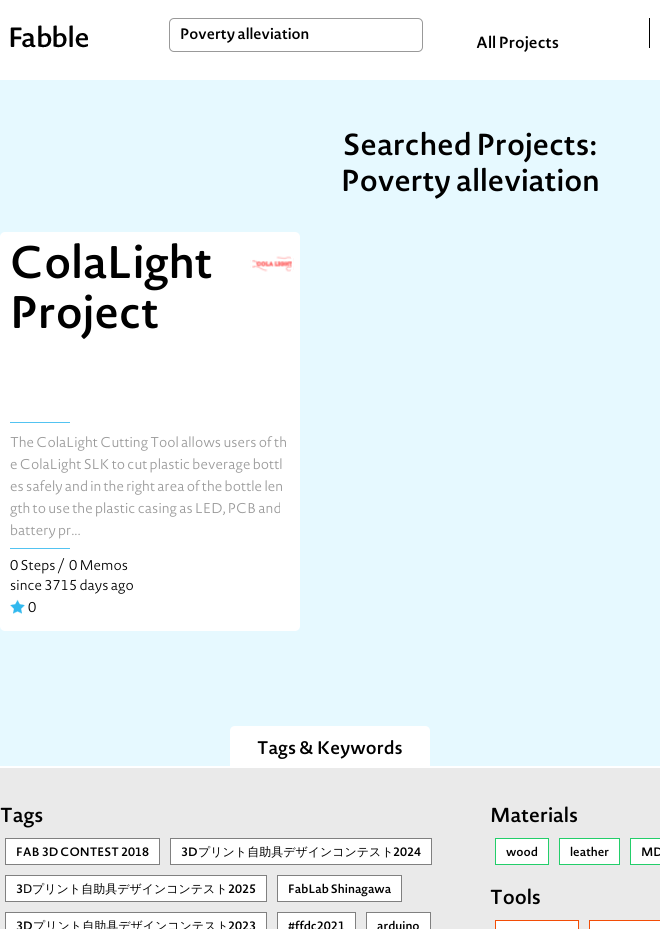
#include <cairo.h>
#include <math.h>
#include <stddef.h>


static void set_color(cairo_t *cr, unsigned color) {
    cairo_set_source_rgb(cr, (color >> 16) / 255.0, (color >> 8 & 255) / 255.0, (color & 255) / 255.0);
}

static void draw_text(cairo_t *cr, double x, double y, const char *s, const char *family, double size, int italic, int bold, unsigned color) {
    cairo_select_font_face(cr, family, italic ? CAIRO_FONT_SLANT_ITALIC : CAIRO_FONT_SLANT_NORMAL,
        bold ? CAIRO_FONT_WEIGHT_BOLD : CAIRO_FONT_WEIGHT_NORMAL);
    cairo_set_font_size(cr, size);
    set_color(cr, color);
    cairo_move_to(cr, x, y);
    cairo_show_text(cr, s);
}

static void fill_rect(cairo_t *cr, double x, double y, double w, double h, unsigned color) {
    set_color(cr, color);
    cairo_rectangle(cr, x, y, w, h);
    cairo_fill(cr);
}

static void rounded_rect(cairo_t *cr, double x, double y, double w, double h, double r) {
    cairo_new_sub_path(cr);
    cairo_arc(cr, x + w - r, y + h - r, r, 0, M_PI / 2);
    cairo_arc(cr, x + r, y + h - r, r, M_PI / 2, M_PI);
    cairo_arc(cr, x + r, y + r, r, M_PI, 1.5 * M_PI);
    cairo_arc(cr, x + w - r, y + r, r, 1.5 * M_PI, 2 * M_PI);
    cairo_close_path(cr);
}

static void draw_image(cairo_t *cr, const char *path, double x, double y, double w, double h) {
    cairo_surface_t *image = cairo_image_surface_create_from_png(path);
    cairo_save(cr);
    cairo_set_source_surface(cr, image, x, y);
    cairo_rectangle(cr, x, y, w, h);
    cairo_fill(cr);
    cairo_restore(cr);
    cairo_surface_destroy(image);
}

int main(void) {
    cairo_surface_t *surface = cairo_image_surface_create(CAIRO_FORMAT_RGB24, 660, 929);
    cairo_t *cr = cairo_create(surface);
    cairo_font_options_t *options = cairo_font_options_create();
    cairo_font_options_set_hint_metrics(options, CAIRO_HINT_METRICS_OFF);
    cairo_font_options_set_hint_style(options, CAIRO_HINT_STYLE_NONE);
    cairo_set_font_options(cr, options);
    cairo_set_miter_limit(cr, 4);
    set_color(cr, 0xEAEAEA);
    cairo_paint(cr);
    fill_rect(cr, 0, 0, 660, 80, 0xFFFFFF);
    draw_image(cr, "assets/img1.png", 10, 25, 78, 23);
    rounded_rect(cr, 169.5, 18.5, 253, 33, 4.5);
    set_color(cr, 0x999999);
    cairo_set_line_width(cr, 1);
    cairo_stroke(cr);
    draw_text(cr, 180, 39, "Poverty alleviation", "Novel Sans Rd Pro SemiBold", 15, 0, 0, 0x000000);
    draw_text(cr, 476, 48, "All Projects", "Novel Sans Rd Pro SemiBold", 16, 0, 0, 0x000000);
    fill_rect(cr, 649, 18, 1, 30, 0x000000);
    fill_rect(cr, 0, 80, 660, 686, 0xE6F9FF);
    fill_rect(cr, 0, 766, 660, 2, 0xFFFFFF);
    draw_text(cr, 343, 155, "Searched Projects:", "Novel Sans Rd Pro SemiBold", 30, 0, 0, 0x000000);
    draw_text(cr, 341, 191, "Poverty alleviation", "Novel Sans Rd Pro SemiBold", 30, 0, 0, 0x000000);
    set_color(cr, 0xFFFFFF);
    rounded_rect(cr, 0, 232, 300, 399, 5);
    cairo_fill(cr);
    draw_text(cr, 10, 278, "ColaLight", "Novel Sans Rd Pro SemiBold", 45, 0, 0, 0x000000);
    draw_text(cr, 10, 328, "Project", "Novel Sans Rd Pro SemiBold", 45, 0, 0, 0x000000);
    draw_image(cr, "assets/img2.png", 250, 256, 44, 16);
    cairo_arc(cr, 272, 264, 21, 0, 2 * M_PI);
    set_color(cr, 0xFFFFFF);
    cairo_set_line_width(cr, 2);
    cairo_stroke(cr);
    fill_rect(cr, 10, 422, 60, 1, 0x52C3F1);
    draw_text(cr, 10, 447, "The ColaLight Cutting Tool allows users of th", "Novel Sans Rd Pro Light", 14, 0, 0, 0x999999);
    draw_text(cr, 10, 469, "e ColaLight SLK to cut plastic beverage bottl", "Novel Sans Rd Pro Light", 14, 0, 0, 0x999999);
    draw_text(cr, 10, 491, "es safely and in the right area of the bottle len", "Novel Sans Rd Pro Light", 14, 0, 0, 0x999999);
    draw_text(cr, 10, 513, "gth to use the plastic casing as LED, PCB and", "Novel Sans Rd Pro Light", 14, 0, 0, 0x999999);
    draw_text(cr, 10, 535, "battery pr...", "Novel Sans Rd Pro Light", 14, 0, 0, 0x999999);
    fill_rect(cr, 10, 548, 60, 1, 0x52C3F1);
    draw_text(cr, 10, 570, "0 Steps /", "Novel Sans Rd Pro Light", 14, 0, 0, 0x000000);
    draw_text(cr, 69, 570, "0 Memos", "Novel Sans Rd Pro Light", 14, 0, 0, 0x000000);
    draw_text(cr, 10, 590, "since 3715 days ago", "Novel Sans Rd Pro Light", 14, 0, 0, 0x000000);
    draw_image(cr, "assets/img3.png", 10, 599, 15, 15);
    draw_text(cr, 28, 612, "0", "Novel Sans Rd Pro Light", 14, 0, 0, 0x000000);
    set_color(cr, 0xFFFFFF);
    cairo_new_path(cr);
    cairo_move_to(cr, 235, 726);
    cairo_line_to(cr, 425, 726);
    cairo_curve_to(cr, 428, 726, 430, 728, 430, 731);
    cairo_line_to(cr, 430, 766);
    cairo_line_to(cr, 230, 766);
    cairo_line_to(cr, 230, 731);
    cairo_curve_to(cr, 230, 728, 232, 726, 235, 726);
    cairo_close_path(cr);
    cairo_fill(cr);
    draw_text(cr, 257, 754, "Tags & Keywords", "Novel Sans Rd Pro SemiBold", 18, 0, 0, 0x000000);
    draw_text(cr, 0, 822, "Tags", "Novel Sans Rd Pro SemiBold", 20, 0, 0, 0x000000);
    set_color(cr, 0xFFFFFF);
    cairo_rectangle(cr, 5.5, 838.5, 154, 26);
    cairo_fill_preserve(cr);
    set_color(cr, 0x808080);
    cairo_set_line_width(cr, 1);
    cairo_stroke(cr);
    draw_text(cr, 16, 856, "FAB 3D CONTEST 2018", "Novel Sans Rd Pro SemiBold", 12, 0, 0, 0x000000);
    set_color(cr, 0xFFFFFF);
    cairo_rectangle(cr, 170.5, 838.5, 261, 26);
    cairo_fill_preserve(cr);
    set_color(cr, 0x808080);
    cairo_stroke(cr);
    draw_text(cr, 181, 856, "3D", "Novel Sans Rd Pro SemiBold", 12, 0, 0, 0x000000);
    draw_text(cr, 198, 856, "プリント自助具デザインコンテスト", "WenQuanYi Zen Hei Medium", 12, 0, 0, 0x000000);
    draw_text(cr, 393, 856, "2024", "Novel Sans Rd Pro SemiBold", 12, 0, 0, 0x000000);
    set_color(cr, 0xFFFFFF);
    cairo_rectangle(cr, 5.5, 875.5, 261, 26);
    cairo_fill_preserve(cr);
    set_color(cr, 0x808080);
    cairo_stroke(cr);
    draw_text(cr, 16, 893, "3", "Novel Sans Rd Pro SemiBold", 12, 0, 0, 0x000000);
    draw_text(cr, 23, 893, "Ⅾ", "DejaVu Sans", 12, 0, 0, 0x000000);
    draw_text(cr, 32, 893, "プリント自助具デザインコンテスト", "WenQuanYi Zen Hei Medium", 12, 0, 0, 0x000000);
    draw_text(cr, 228, 893, "2025", "Novel Sans Rd Pro SemiBold", 12, 0, 0, 0x000000);
    set_color(cr, 0xFFFFFF);
    cairo_rectangle(cr, 277.5, 875.5, 124, 26);
    cairo_fill_preserve(cr);
    set_color(cr, 0x808080);
    cairo_stroke(cr);
    draw_text(cr, 288, 893, "FabLab Shinagawa", "Novel Sans Rd Pro SemiBold", 12, 0, 0, 0x000000);
    set_color(cr, 0xFFFFFF);
    cairo_rectangle(cr, 5.5, 912.5, 261, 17);
    cairo_fill_preserve(cr);
    set_color(cr, 0x808080);
    cairo_stroke(cr);
    draw_text(cr, 16, 930, "3D", "Novel Sans Rd Pro SemiBold", 12, 0, 0, 0x000000);
    draw_text(cr, 33, 930, "プリント自助具デザインコンテスト", "WenQuanYi Zen Hei Medium", 12, 0, 0, 0x000000);
    draw_text(cr, 228, 930, "2023", "Novel Sans Rd Pro SemiBold", 12, 0, 0, 0x000000);
    set_color(cr, 0xFFFFFF);
    cairo_rectangle(cr, 277.5, 912.5, 78, 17);
    cairo_fill_preserve(cr);
    set_color(cr, 0x808080);
    cairo_stroke(cr);
    draw_text(cr, 288, 930, "#ffdc2021", "Novel Sans Rd Pro SemiBold", 12, 0, 0, 0x000000);
    set_color(cr, 0xFFFFFF);
    cairo_rectangle(cr, 366.5, 912.5, 64, 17);
    cairo_fill_preserve(cr);
    set_color(cr, 0x808080);
    cairo_stroke(cr);
    draw_text(cr, 377, 930, "arduino", "Novel Sans Rd Pro SemiBold", 12, 0, 0, 0x000000);
    draw_text(cr, 490, 822, "Materials", "Novel Sans Rd Pro SemiBold", 20, 0, 0, 0x000000);
    set_color(cr, 0xFFFFFF);
    cairo_rectangle(cr, 495.5, 838.5, 53, 26);
    cairo_fill_preserve(cr);
    set_color(cr, 0x23CE6A);
    cairo_stroke(cr);
    draw_text(cr, 506, 856, "wood", "Novel Sans Rd Pro SemiBold", 12, 0, 0, 0x000000);
    set_color(cr, 0xFFFFFF);
    cairo_rectangle(cr, 559.5, 838.5, 60, 26);
    cairo_fill_preserve(cr);
    set_color(cr, 0x23CE6A);
    cairo_stroke(cr);
    draw_text(cr, 570, 856, "leather", "Novel Sans Rd Pro SemiBold", 12, 0, 0, 0x000000);
    set_color(cr, 0xFFFFFF);
    cairo_rectangle(cr, 630.5, 838.5, 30, 26);
    cairo_fill_preserve(cr);
    set_color(cr, 0x23CE6A);
    cairo_stroke(cr);
    draw_text(cr, 641, 856, "MD", "Novel Sans Rd Pro SemiBold", 12, 0, 0, 0x000000);
    draw_text(cr, 490, 904, "Tools", "Novel Sans Rd Pro SemiBold", 20, 0, 0, 0x000000);
    set_color(cr, 0xFFFFFF);
    cairo_rectangle(cr, 495.5, 920.5, 83, 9);
    cairo_fill_preserve(cr);
    set_color(cr, 0xF34D06);
    cairo_stroke(cr);
    set_color(cr, 0xFFFFFF);
    cairo_rectangle(cr, 589.5, 920.5, 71, 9);
    cairo_fill_preserve(cr);
    set_color(cr, 0xF34D06);
    cairo_stroke(cr);
    cairo_surface_write_to_png(surface, "output.png");
    cairo_font_options_destroy(options);
    cairo_destroy(cr);
    cairo_surface_destroy(surface);
    return 0;
}
